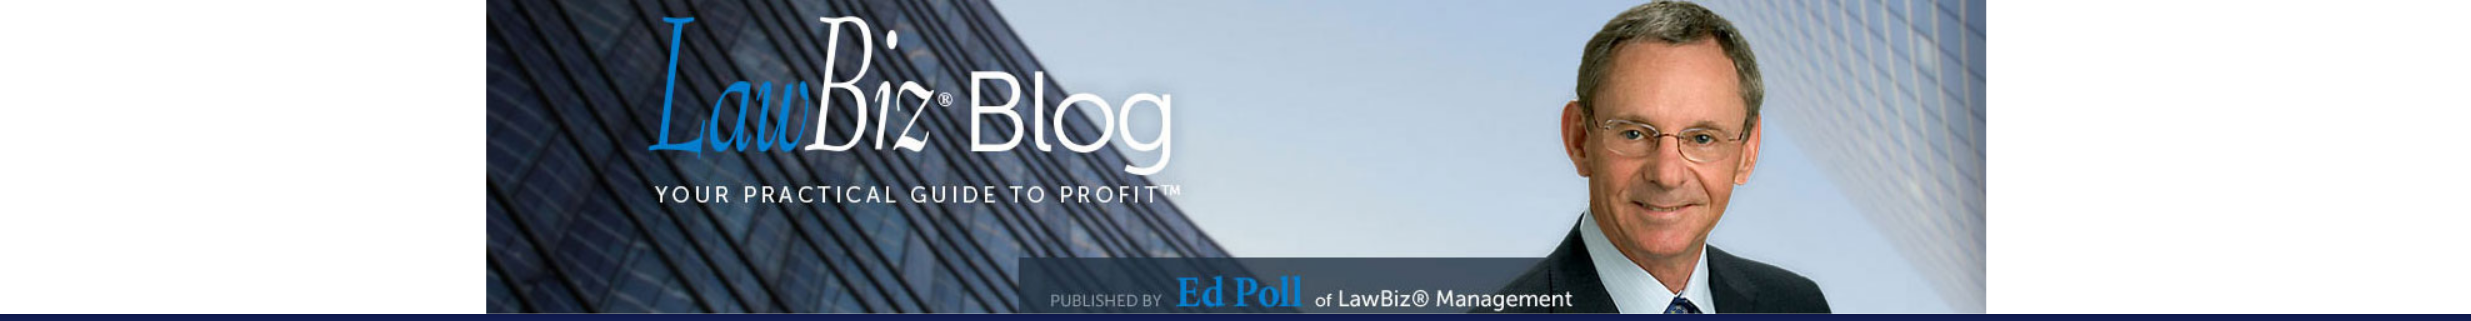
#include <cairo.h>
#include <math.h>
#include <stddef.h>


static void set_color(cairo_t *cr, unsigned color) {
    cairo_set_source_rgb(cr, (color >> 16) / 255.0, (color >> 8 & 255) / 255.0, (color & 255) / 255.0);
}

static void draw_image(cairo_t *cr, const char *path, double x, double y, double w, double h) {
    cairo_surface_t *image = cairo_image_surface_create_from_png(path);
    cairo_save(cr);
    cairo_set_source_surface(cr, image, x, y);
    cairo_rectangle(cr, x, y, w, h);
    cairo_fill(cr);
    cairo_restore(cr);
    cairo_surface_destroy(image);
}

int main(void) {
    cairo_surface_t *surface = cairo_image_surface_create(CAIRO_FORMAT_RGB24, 2471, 321);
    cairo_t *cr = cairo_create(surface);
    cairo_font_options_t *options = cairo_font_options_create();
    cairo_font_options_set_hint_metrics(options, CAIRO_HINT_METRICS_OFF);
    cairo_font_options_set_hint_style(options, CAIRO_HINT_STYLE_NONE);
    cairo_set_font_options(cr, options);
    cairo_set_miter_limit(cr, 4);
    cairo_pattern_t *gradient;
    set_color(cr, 0xFFFFFF);
    cairo_paint(cr);
    draw_image(cr, "assets/img1.png", 486, 0, 1501, 314);
    gradient = cairo_pattern_create_linear(1236, 314, 1236, 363);
    cairo_pattern_add_color_stop_rgba(gradient, 0, 0.055, 0.094, 0.294, 1);
    cairo_pattern_add_color_stop_rgba(gradient, 1, 0.165, 0.259, 0.494, 1);
    cairo_set_source(cr, gradient);
    cairo_pattern_destroy(gradient);
    cairo_rectangle(cr, 0, 314, 2471, 7);
    cairo_fill(cr);
    cairo_surface_write_to_png(surface, "output.png");
    cairo_font_options_destroy(options);
    cairo_destroy(cr);
    cairo_surface_destroy(surface);
    return 0;
}
